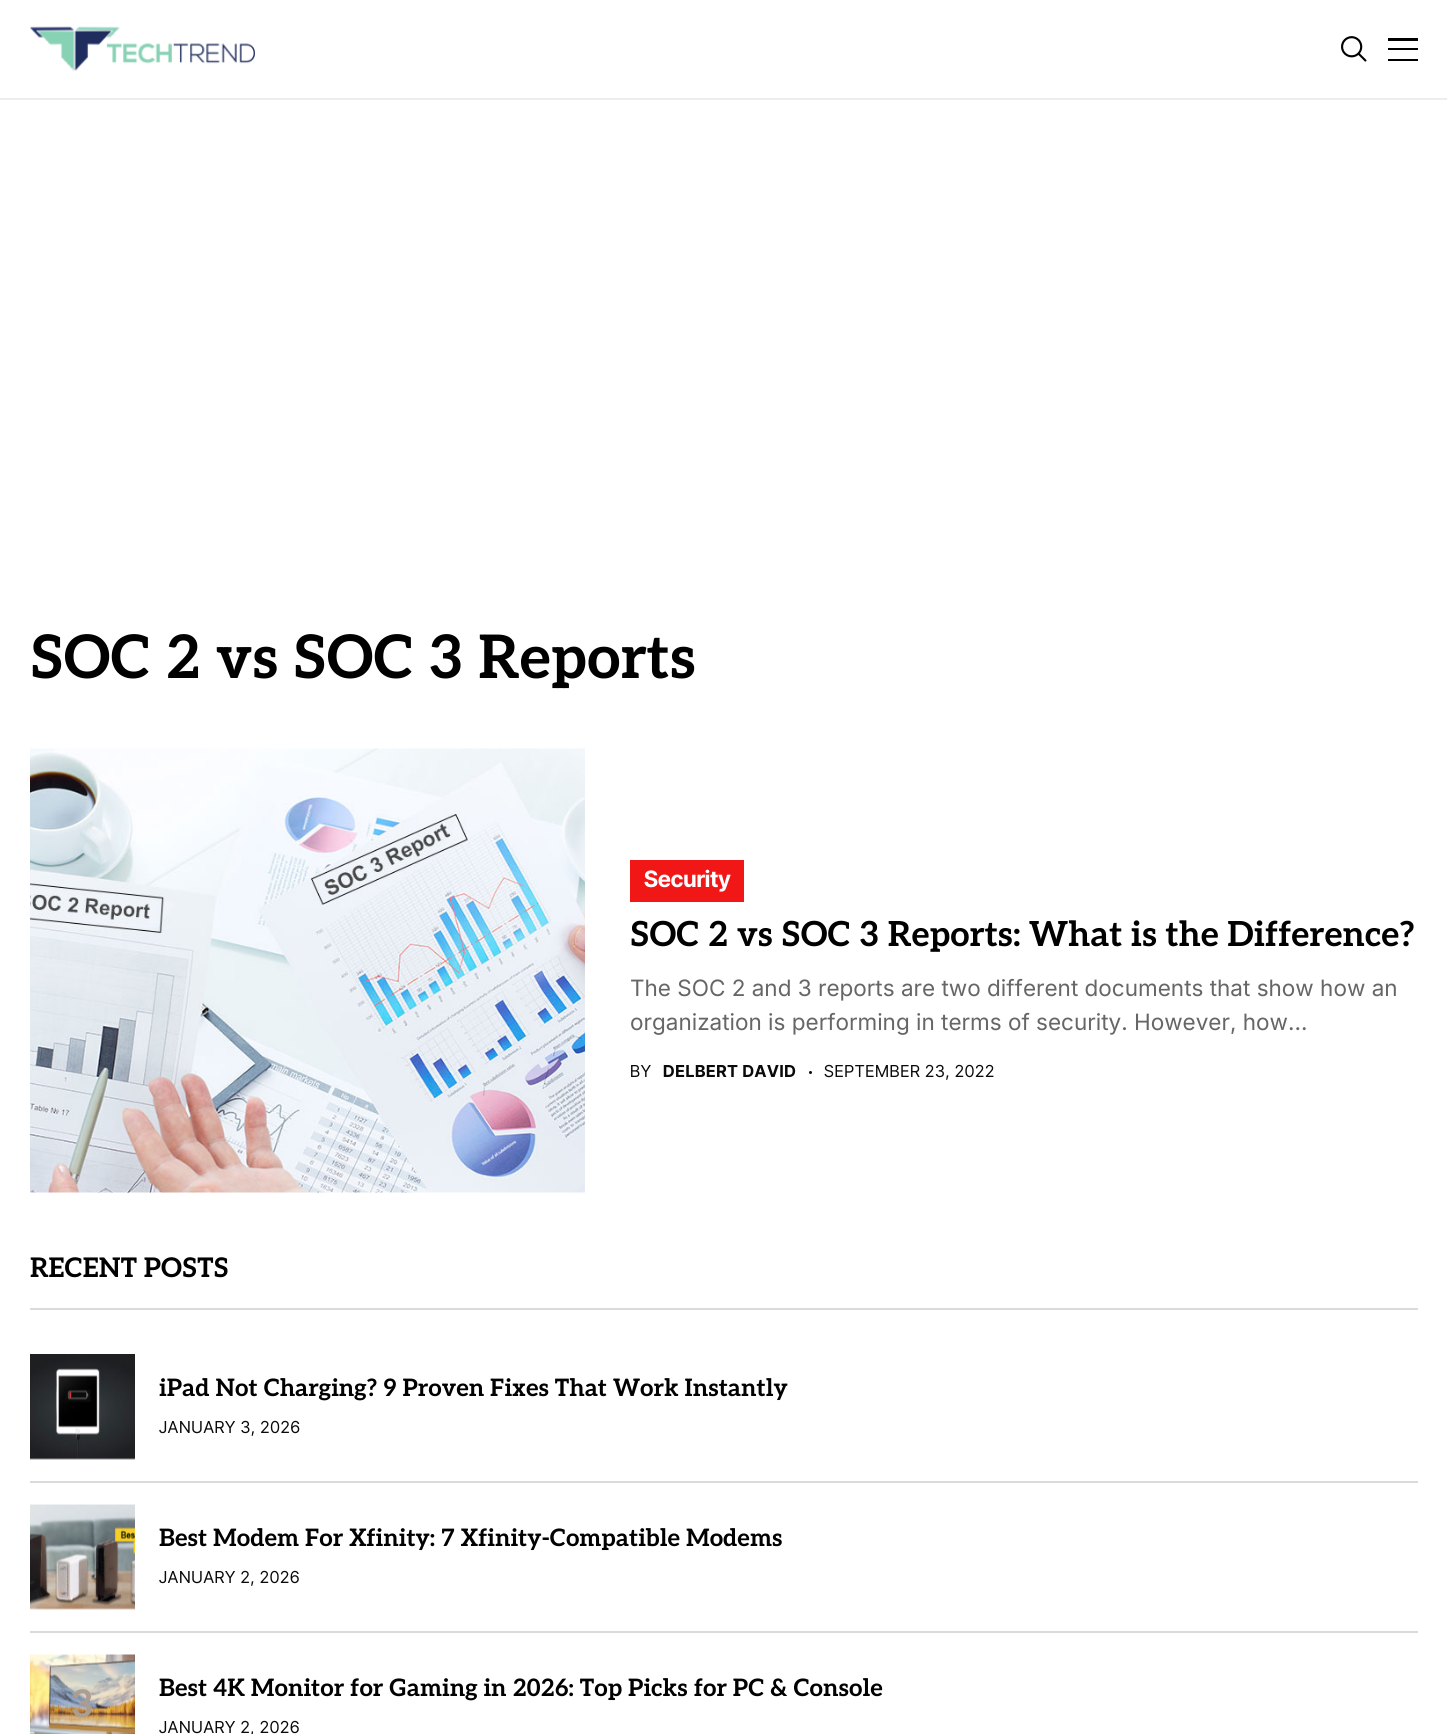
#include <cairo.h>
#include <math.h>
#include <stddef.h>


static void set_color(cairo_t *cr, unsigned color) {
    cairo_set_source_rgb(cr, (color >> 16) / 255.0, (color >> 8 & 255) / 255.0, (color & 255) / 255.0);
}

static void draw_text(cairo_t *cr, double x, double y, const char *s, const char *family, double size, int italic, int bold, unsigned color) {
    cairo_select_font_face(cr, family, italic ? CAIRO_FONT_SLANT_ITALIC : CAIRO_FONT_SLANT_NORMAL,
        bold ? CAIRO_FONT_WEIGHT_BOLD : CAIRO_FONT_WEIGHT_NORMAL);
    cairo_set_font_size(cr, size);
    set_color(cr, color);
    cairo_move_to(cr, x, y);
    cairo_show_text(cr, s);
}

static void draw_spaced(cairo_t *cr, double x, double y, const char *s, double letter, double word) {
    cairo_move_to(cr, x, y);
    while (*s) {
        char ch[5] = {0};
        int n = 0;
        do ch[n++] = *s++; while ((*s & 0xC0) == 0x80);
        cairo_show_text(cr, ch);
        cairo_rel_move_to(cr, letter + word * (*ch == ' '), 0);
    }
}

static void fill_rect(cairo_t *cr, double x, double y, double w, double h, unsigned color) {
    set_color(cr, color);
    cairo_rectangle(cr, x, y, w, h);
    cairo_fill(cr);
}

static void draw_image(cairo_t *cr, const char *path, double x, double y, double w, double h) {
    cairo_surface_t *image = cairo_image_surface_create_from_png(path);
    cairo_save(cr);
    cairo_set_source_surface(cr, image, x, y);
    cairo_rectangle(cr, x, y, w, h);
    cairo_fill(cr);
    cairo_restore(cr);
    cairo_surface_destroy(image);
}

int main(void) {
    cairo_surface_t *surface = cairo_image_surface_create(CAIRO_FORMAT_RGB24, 1447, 1734);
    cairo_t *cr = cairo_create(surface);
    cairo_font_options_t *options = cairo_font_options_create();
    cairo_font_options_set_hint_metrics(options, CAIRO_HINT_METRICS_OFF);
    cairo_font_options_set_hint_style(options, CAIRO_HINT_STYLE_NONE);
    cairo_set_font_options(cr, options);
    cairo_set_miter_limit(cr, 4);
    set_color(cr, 0xFFFFFF);
    cairo_paint(cr);
    fill_rect(cr, 0, 98, 1447, 2, 0xEEEDEB);
    draw_image(cr, "assets/img1.png", 30, 26, 225, 45);
    draw_image(cr, "assets/img2.png", 1341, 36, 26, 26);
    fill_rect(cr, 1388, 38, 30, 3, 0x000000);
    fill_rect(cr, 1388, 48, 30, 2, 0x000000);
    fill_rect(cr, 1388, 59, 30, 2, 0x000000);
    draw_text(cr, 30, 678, "SOC 2 vs SOC 3 Reports", "Aleo", 60, 0, 1, 0x000000);
    draw_image(cr, "assets/img3.png", 30, 748, 555, 445);
    fill_rect(cr, 630, 860, 114, 42, 0xF21717);
    draw_text(cr, 644, 887, "Security", "Inter Tight", 22.5, 0, 1, 0xFFFFFF);
    draw_text(cr, 630, 946, "SOC 2 vs SOC 3 Reports: What is the Difference?", "Aleo", 34.5, 0, 1, 0x000000);
    draw_text(cr, 630, 996, "The SOC 2 and 3 reports are two different documents that show how an", "Inter", 22.5, 0, 0, 0x666666);
    draw_text(cr, 630, 1030, "organization is performing in terms of security. However, how...", "Inter", 22.5, 0, 0, 0x666666);
    cairo_select_font_face(cr, "Inter Tight", CAIRO_FONT_SLANT_NORMAL, CAIRO_FONT_WEIGHT_NORMAL);
    cairo_set_font_size(cr, 16.5);
    set_color(cr, 0x0A0A0A);
    draw_spaced(cr, 630, 1077, "BY", 0.7, 0);
    cairo_select_font_face(cr, "Inter Tight", CAIRO_FONT_SLANT_NORMAL, CAIRO_FONT_WEIGHT_BOLD);
    draw_spaced(cr, 663, 1077, "DELBERT DAVID", 0.7, 0);
    cairo_new_path(cr);
    cairo_arc(cr, 810.5, 1072.5, 1.5, 0, 2 * M_PI);
    cairo_fill(cr);
    cairo_select_font_face(cr, "Inter Tight", CAIRO_FONT_SLANT_NORMAL, CAIRO_FONT_WEIGHT_NORMAL);
    draw_spaced(cr, 824, 1077, "SEPTEMBER 23, 2022", 0.7, 0);
    fill_rect(cr, 30, 1308, 1388, 2, 0xDBDBDB);
    draw_text(cr, 30, 1277, "RECENT POSTS", "Aleo", 27, 0, 1, 0x000000);
    draw_image(cr, "assets/img4.png", 30, 1354, 105, 106);
    draw_text(cr, 159, 1396, "iPad Not Charging? 9 Proven Fixes That Work Instantly", "Aleo", 24, 0, 1, 0x000000);
    cairo_select_font_face(cr, "Inter Tight", CAIRO_FONT_SLANT_NORMAL, CAIRO_FONT_WEIGHT_NORMAL);
    cairo_set_font_size(cr, 16.5);
    set_color(cr, 0x0A0A0A);
    draw_spaced(cr, 159, 1433, "JANUARY 3, 2026", 0.7, 0);
    fill_rect(cr, 30, 1481, 1388, 2, 0xDBDBDB);
    draw_image(cr, "assets/img5.png", 30, 1504, 105, 106);
    draw_text(cr, 159, 1546, "Best Modem For Xfinity: 7 Xfinity-Compatible Modems", "Aleo", 24, 0, 1, 0x000000);
    cairo_select_font_face(cr, "Inter Tight", CAIRO_FONT_SLANT_NORMAL, CAIRO_FONT_WEIGHT_NORMAL);
    cairo_set_font_size(cr, 16.5);
    set_color(cr, 0x0A0A0A);
    draw_spaced(cr, 159, 1583, "JANUARY 2, 2026", 0.7, 0);
    fill_rect(cr, 30, 1631, 1388, 2, 0xDBDBDB);
    draw_image(cr, "assets/img6.png", 30, 1654, 105, 80);
    draw_text(cr, 71, 1717, "3", "Aleo", 38, 0, 1, 0xAC9D8E);
    draw_text(cr, 159, 1696, "Best 4K Monitor for Gaming in 2026: Top Picks for PC & Console", "Aleo", 24, 0, 1, 0x000000);
    cairo_select_font_face(cr, "Inter Tight", CAIRO_FONT_SLANT_NORMAL, CAIRO_FONT_WEIGHT_NORMAL);
    cairo_set_font_size(cr, 16.5);
    set_color(cr, 0x0A0A0A);
    draw_spaced(cr, 159, 1733, "JANUARY 2, 2026", 0.7, 0);
    cairo_surface_write_to_png(surface, "output.png");
    cairo_font_options_destroy(options);
    cairo_destroy(cr);
    cairo_surface_destroy(surface);
    return 0;
}
